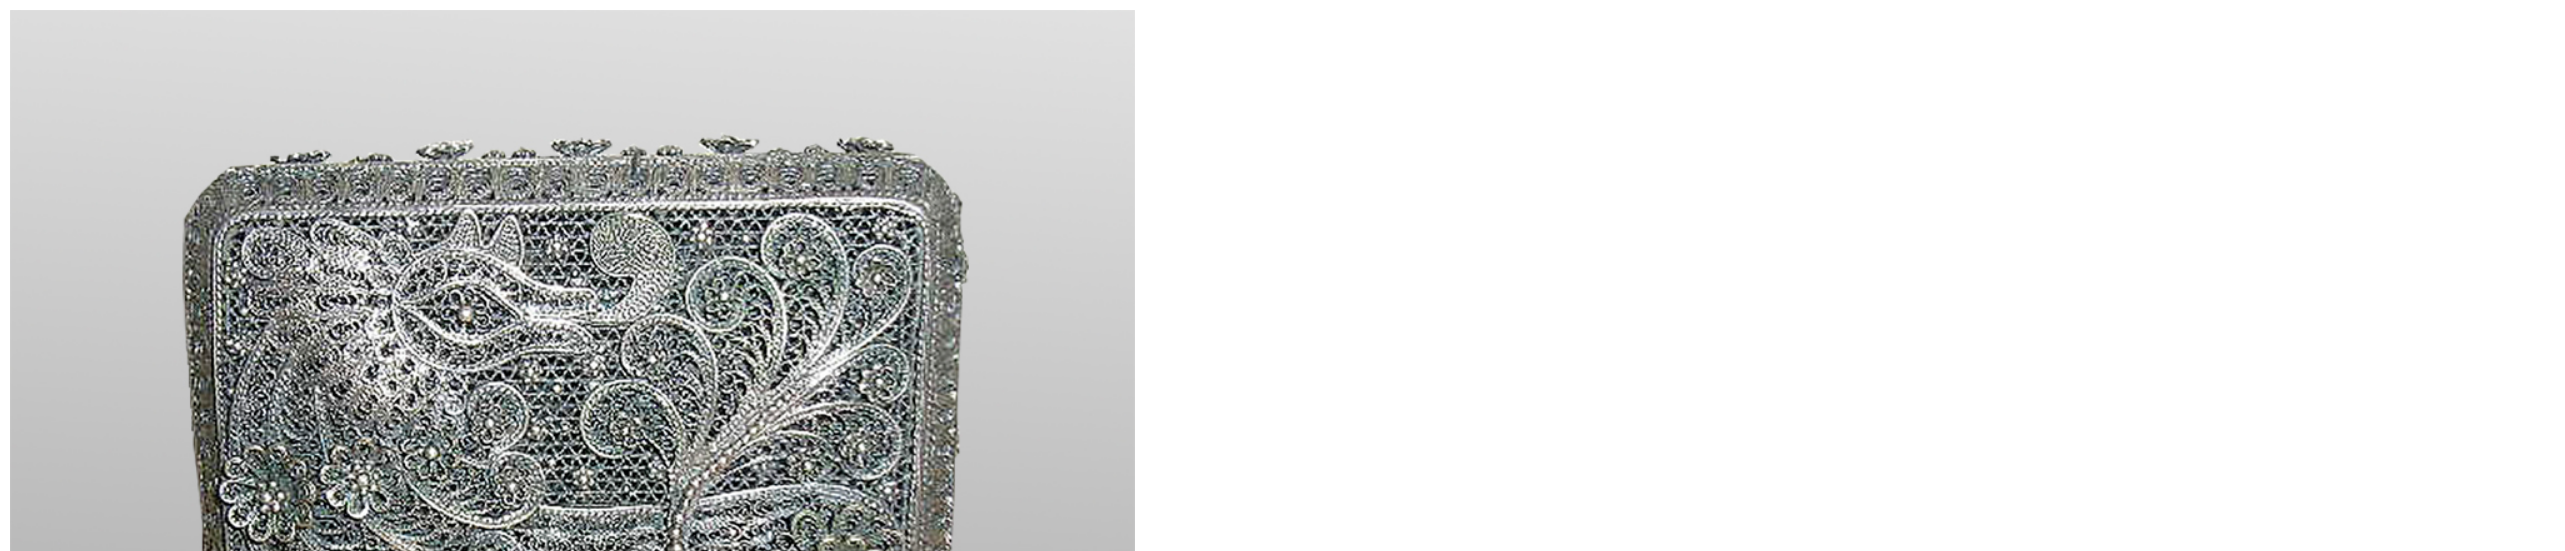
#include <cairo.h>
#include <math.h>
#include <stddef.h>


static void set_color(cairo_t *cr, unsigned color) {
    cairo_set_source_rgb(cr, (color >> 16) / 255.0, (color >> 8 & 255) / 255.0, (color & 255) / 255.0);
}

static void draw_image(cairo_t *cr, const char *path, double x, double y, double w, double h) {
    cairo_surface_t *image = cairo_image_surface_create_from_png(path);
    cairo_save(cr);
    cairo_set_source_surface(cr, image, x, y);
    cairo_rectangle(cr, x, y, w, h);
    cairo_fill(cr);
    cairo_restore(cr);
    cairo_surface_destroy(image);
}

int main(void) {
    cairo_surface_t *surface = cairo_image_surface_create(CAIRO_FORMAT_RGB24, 2565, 551);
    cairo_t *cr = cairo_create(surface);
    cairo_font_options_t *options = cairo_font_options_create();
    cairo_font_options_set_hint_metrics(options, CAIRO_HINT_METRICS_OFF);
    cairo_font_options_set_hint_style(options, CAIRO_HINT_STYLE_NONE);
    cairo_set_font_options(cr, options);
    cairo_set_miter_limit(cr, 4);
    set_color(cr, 0xFFFFFF);
    cairo_paint(cr);
    draw_image(cr, "assets/img1.png", 10, 10, 1125, 541);
    cairo_surface_write_to_png(surface, "output.png");
    cairo_font_options_destroy(options);
    cairo_destroy(cr);
    cairo_surface_destroy(surface);
    return 0;
}
